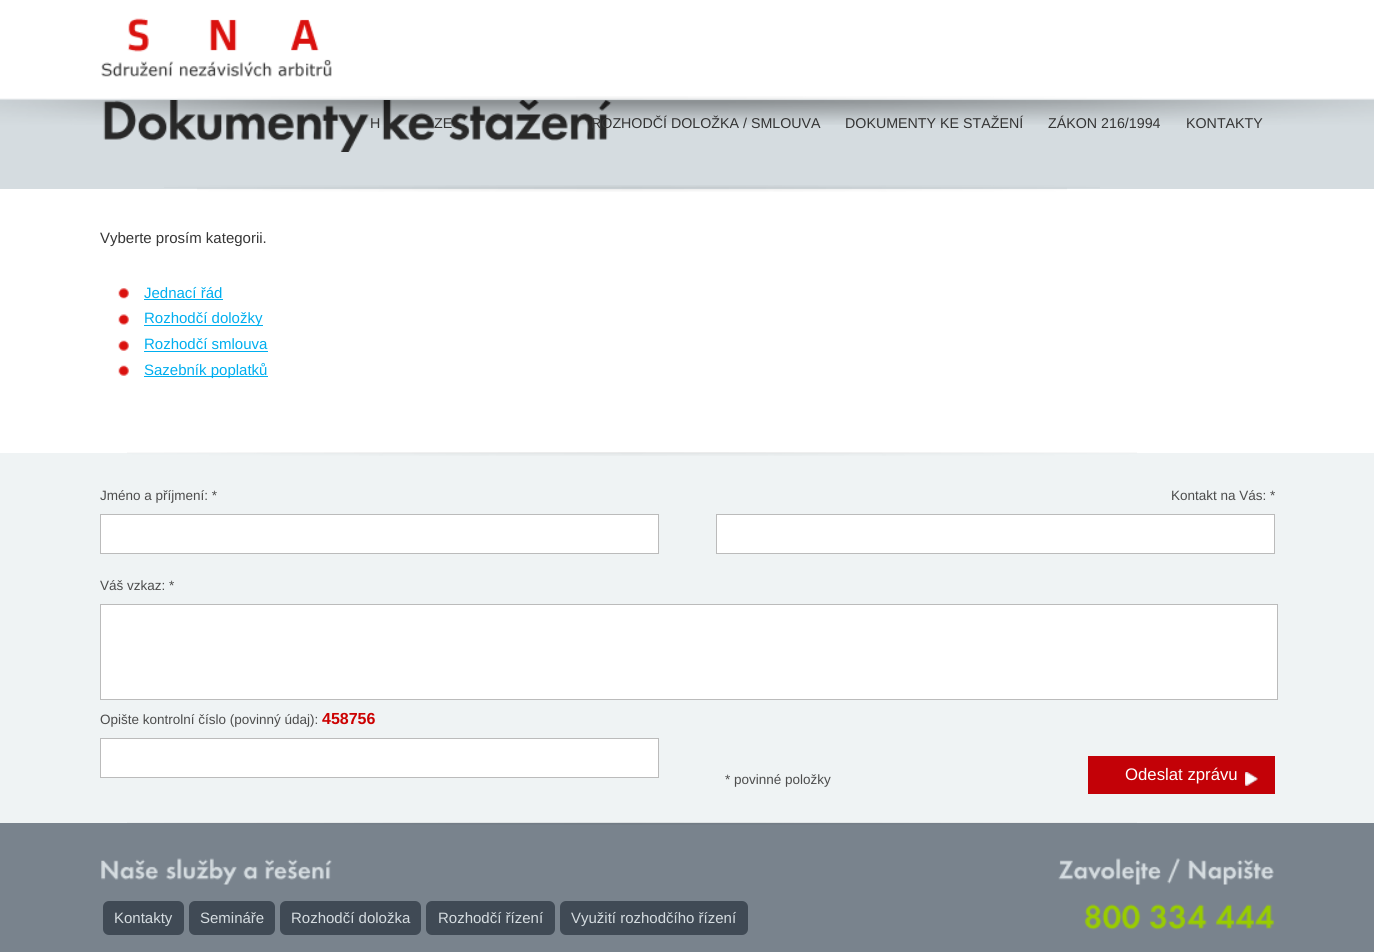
#include <cairo.h>
#include <math.h>
#include <stddef.h>


static void set_color(cairo_t *cr, unsigned color) {
    cairo_set_source_rgb(cr, (color >> 16) / 255.0, (color >> 8 & 255) / 255.0, (color & 255) / 255.0);
}

static void draw_text(cairo_t *cr, double x, double y, const char *s, const char *family, double size, int italic, int bold, unsigned color) {
    cairo_select_font_face(cr, family, italic ? CAIRO_FONT_SLANT_ITALIC : CAIRO_FONT_SLANT_NORMAL,
        bold ? CAIRO_FONT_WEIGHT_BOLD : CAIRO_FONT_WEIGHT_NORMAL);
    cairo_set_font_size(cr, size);
    set_color(cr, color);
    cairo_move_to(cr, x, y);
    cairo_show_text(cr, s);
}

static void fill_rect(cairo_t *cr, double x, double y, double w, double h, unsigned color) {
    set_color(cr, color);
    cairo_rectangle(cr, x, y, w, h);
    cairo_fill(cr);
}

static void rounded_rect(cairo_t *cr, double x, double y, double w, double h, double r) {
    cairo_new_sub_path(cr);
    cairo_arc(cr, x + w - r, y + h - r, r, 0, M_PI / 2);
    cairo_arc(cr, x + r, y + h - r, r, M_PI / 2, M_PI);
    cairo_arc(cr, x + r, y + r, r, M_PI, 1.5 * M_PI);
    cairo_arc(cr, x + w - r, y + r, r, 1.5 * M_PI, 2 * M_PI);
    cairo_close_path(cr);
}

static void draw_image(cairo_t *cr, const char *path, double x, double y, double w, double h) {
    cairo_surface_t *image = cairo_image_surface_create_from_png(path);
    cairo_save(cr);
    cairo_set_source_surface(cr, image, x, y);
    cairo_rectangle(cr, x, y, w, h);
    cairo_fill(cr);
    cairo_restore(cr);
    cairo_surface_destroy(image);
}

int main(void) {
    cairo_surface_t *surface = cairo_image_surface_create(CAIRO_FORMAT_RGB24, 1374, 952);
    cairo_t *cr = cairo_create(surface);
    cairo_font_options_t *options = cairo_font_options_create();
    cairo_font_options_set_hint_metrics(options, CAIRO_HINT_METRICS_OFF);
    cairo_font_options_set_hint_style(options, CAIRO_HINT_STYLE_NONE);
    cairo_set_font_options(cr, options);
    cairo_set_miter_limit(cr, 4);
    set_color(cr, 0xFFFFFF);
    cairo_paint(cr);
    draw_image(cr, "assets/img1.png", 0, 96, 1374, 4);
    fill_rect(cr, 0, 100, 1374, 89, 0xD5DCE0);
    draw_text(cr, 370, 128, "H", "Liberation Sans", 14.25, 0, 0, 0x363636);
    draw_image(cr, "assets/img6.png", 382, 100, 53, 41);
    draw_image(cr, "assets/img7.png", 449, 100, 163, 41);
    draw_text(cr, 434, 128, "ZE", "Liberation Sans", 14.25, 0, 0, 0x363636);
    draw_text(cr, 591, 128, "ROZHODČÍ DOLOŽKA / SMLOUVA", "Liberation Sans", 14.25, 0, 0, 0x363636);
    draw_text(cr, 845, 128, "DOKUMENTY KE STAŽENÍ", "Liberation Sans", 14.25, 0, 0, 0x363636);
    draw_text(cr, 1048, 128, "ZÁKON 216/1994", "Liberation Sans", 14.25, 0, 0, 0x363636);
    draw_text(cr, 1186, 128, "KONTAKTY", "Liberation Sans", 14.25, 0, 0, 0x363636);
    draw_image(cr, "assets/img5.png", 103, 100, 266, 52);
    draw_image(cr, "assets/img2.png", 0, 100, 1374, 25);
    draw_image(cr, "assets/img3.png", 101, 18, 231, 59);
    draw_image(cr, "assets/img4.png", 164, 185, 936, 3);
    draw_image(cr, "assets/img8.png", 197, 188, 870, 4);
    draw_text(cr, 100, 243, "Vyberte prosím kategorii.", "Liberation Sans", 15, 0, 0, 0x363636);
    draw_image(cr, "assets/img9.png", 118, 288, 11, 11);
    draw_text(cr, 144, 298, "Jednací řád", "Liberation Sans", 15, 0, 0, 0x00AEEF);
    fill_rect(cr, 144, 299, 79, 1, 0x00AEEF);
    draw_image(cr, "assets/img10.png", 118, 314, 11, 11);
    fill_rect(cr, 144, 325, 119, 1, 0x00AEEF);
    draw_text(cr, 144, 323, "Rozhodčí doložky", "Liberation Sans", 15, 0, 0, 0x00AEEF);
    draw_image(cr, "assets/img11.png", 118, 340, 11, 11);
    draw_text(cr, 144, 349, "Rozhodčí smlouva", "Liberation Sans", 15, 0, 0, 0x00AEEF);
    fill_rect(cr, 144, 351, 124, 1, 0x00AEEF);
    draw_image(cr, "assets/img11.png", 118, 365, 11, 11);
    fill_rect(cr, 144, 376, 124, 1, 0x00AEEF);
    draw_text(cr, 144, 375, "Sazebník poplatků", "Liberation Sans", 15, 0, 0, 0x00AEEF);
    fill_rect(cr, 0, 453, 1374, 370, 0xEFF3F4);
    draw_image(cr, "assets/img12.png", 127, 452, 1010, 4);
    draw_text(cr, 100, 500, "Jméno a příjmení: *", "Liberation Sans", 13.5, 0, 0, 0x4C4C4C);
    set_color(cr, 0xFFFFFF);
    cairo_rectangle(cr, 100.5, 514.5, 558, 39);
    cairo_fill_preserve(cr);
    set_color(cr, 0xBBBBBB);
    cairo_set_line_width(cr, 1);
    cairo_stroke(cr);
    draw_text(cr, 1171, 500, "Kontakt na Vás: *", "Liberation Sans", 13.5, 0, 0, 0x4C4C4C);
    set_color(cr, 0xFFFFFF);
    cairo_rectangle(cr, 716.5, 514.5, 558, 39);
    cairo_fill_preserve(cr);
    set_color(cr, 0xBBBBBB);
    cairo_stroke(cr);
    draw_text(cr, 100, 590, "Váš vzkaz: *", "Liberation Sans", 13.5, 0, 0, 0x4C4C4C);
    set_color(cr, 0xFFFFFF);
    cairo_rectangle(cr, 100.5, 604.5, 1177, 95);
    cairo_fill_preserve(cr);
    set_color(cr, 0xBBBBBB);
    cairo_stroke(cr);
    draw_text(cr, 100, 724, "Opište kontrolní číslo (povinný údaj):", "Liberation Sans", 13.5, 0, 0, 0x4C4C4C);
    draw_text(cr, 322, 724, "458756", "Liberation Sans", 16, 0, 1, 0xCC0000);
    set_color(cr, 0xFFFFFF);
    cairo_rectangle(cr, 100.5, 738.5, 558, 39);
    cairo_fill_preserve(cr);
    set_color(cr, 0xBBBBBB);
    cairo_stroke(cr);
    draw_text(cr, 725, 784, "* povinné položky", "Liberation Sans", 13.5, 0, 0, 0x4C4C4C);
    fill_rect(cr, 1088, 756, 187, 38, 0xC30107);
    draw_image(cr, "assets/img13.png", 1245, 772, 13, 14);
    draw_text(cr, 1125, 780, "Odeslat zprávu", "Liberation Sans", 16.75, 0, 0, 0xFFFFFF);
    fill_rect(cr, 0, 823, 1374, 129, 0x79838D);
    draw_image(cr, "assets/img14.png", 127, 822, 1010, 3);
    draw_image(cr, "assets/img15.png", 101, 859, 57, 21);
    draw_image(cr, "assets/img16.png", 166, 858, 71, 27);
    draw_image(cr, "assets/img17.png", 243, 866, 15, 14);
    draw_image(cr, "assets/img18.png", 265, 859, 67, 21);
    set_color(cr, 0x404A55);
    rounded_rect(cr, 103, 901, 81, 34, 6);
    cairo_fill(cr);
    draw_text(cr, 114, 923, "Kontakty", "Liberation Sans", 15, 0, 0, 0xD5DCE0);
    set_color(cr, 0x404A55);
    rounded_rect(cr, 189, 901, 86, 34, 6);
    cairo_fill(cr);
    draw_text(cr, 200, 923, "Semináře", "Liberation Sans", 15, 0, 0, 0xD5DCE0);
    set_color(cr, 0x404A55);
    rounded_rect(cr, 280, 901, 141, 34, 6);
    cairo_fill(cr);
    draw_text(cr, 291, 923, "Rozhodčí doložka", "Liberation Sans", 15, 0, 0, 0xD5DCE0);
    set_color(cr, 0x404A55);
    rounded_rect(cr, 426, 901, 129, 34, 6);
    cairo_fill(cr);
    draw_text(cr, 438, 923, "Rozhodčí řízení", "Liberation Sans", 15, 0, 0, 0xD5DCE0);
    set_color(cr, 0x404A55);
    rounded_rect(cr, 560, 901, 188, 34, 6);
    cairo_fill(cr);
    draw_text(cr, 571, 923, "Využití rozhodčího řízení", "Liberation Sans", 15, 0, 0, 0xD5DCE0);
    draw_image(cr, "assets/img19.png", 1058, 858, 103, 27);
    draw_image(cr, "assets/img20.png", 1167, 858, 14, 26);
    draw_image(cr, "assets/img21.png", 1188, 859, 86, 26);
    draw_image(cr, "assets/img22.png", 1084, 904, 57, 26);
    draw_image(cr, "assets/img23.png", 1149, 904, 58, 26);
    draw_image(cr, "assets/img24.png", 1216, 904, 58, 25);
    cairo_surface_write_to_png(surface, "output.png");
    cairo_font_options_destroy(options);
    cairo_destroy(cr);
    cairo_surface_destroy(surface);
    return 0;
}
